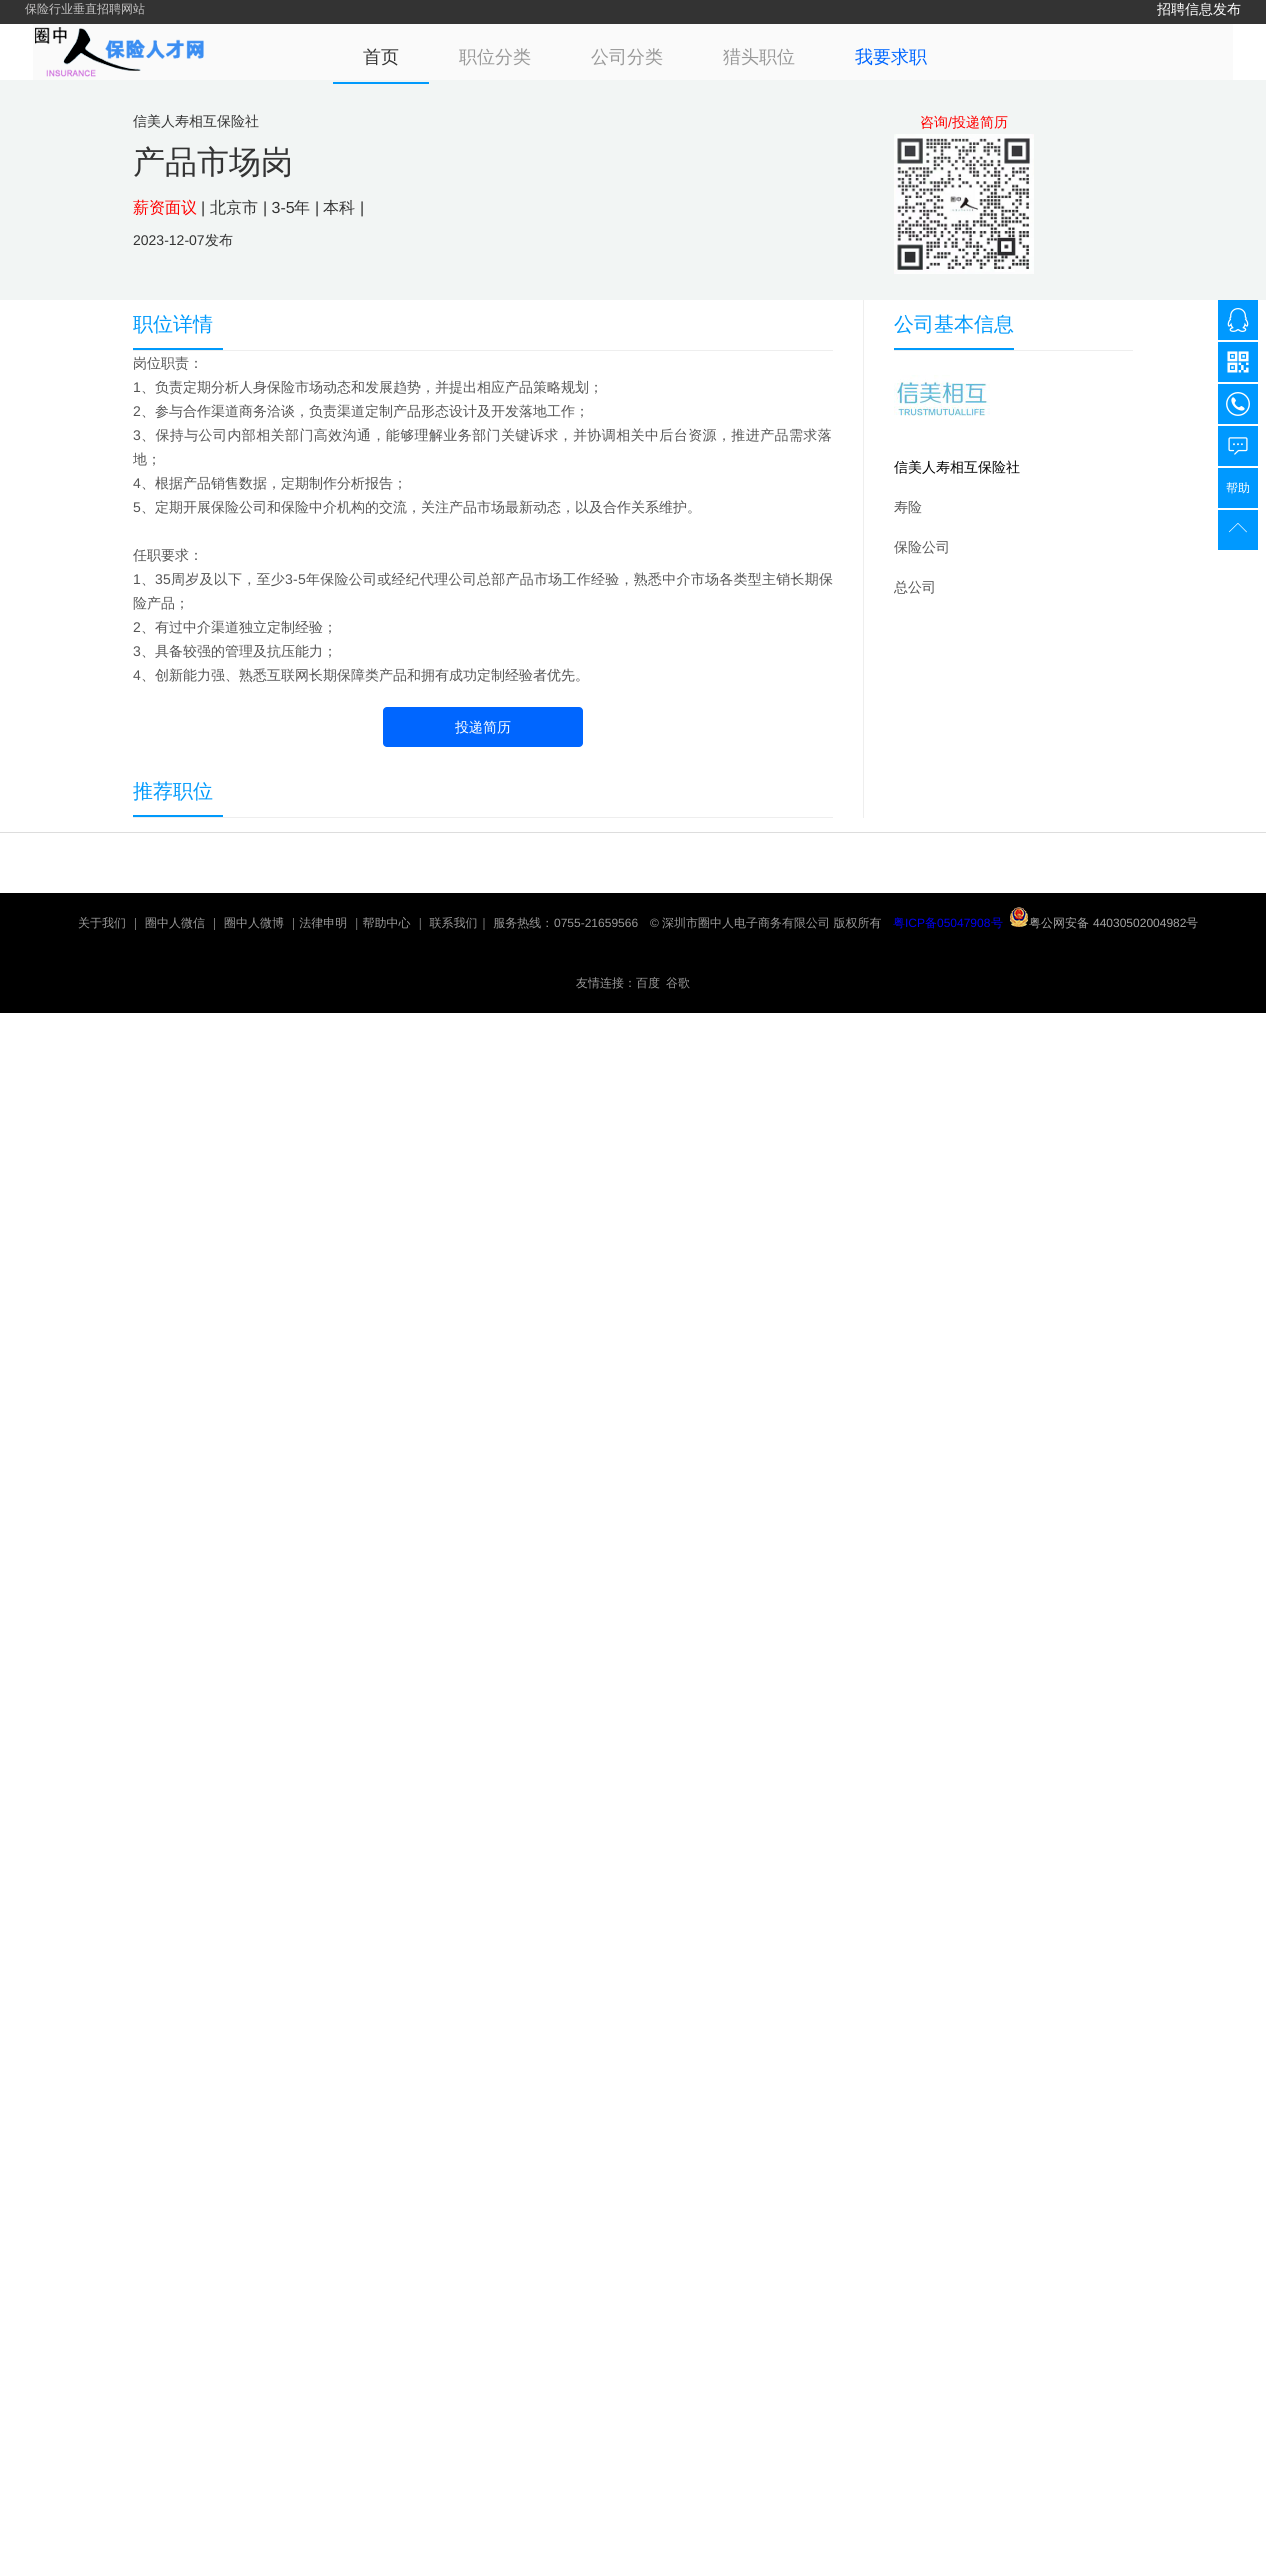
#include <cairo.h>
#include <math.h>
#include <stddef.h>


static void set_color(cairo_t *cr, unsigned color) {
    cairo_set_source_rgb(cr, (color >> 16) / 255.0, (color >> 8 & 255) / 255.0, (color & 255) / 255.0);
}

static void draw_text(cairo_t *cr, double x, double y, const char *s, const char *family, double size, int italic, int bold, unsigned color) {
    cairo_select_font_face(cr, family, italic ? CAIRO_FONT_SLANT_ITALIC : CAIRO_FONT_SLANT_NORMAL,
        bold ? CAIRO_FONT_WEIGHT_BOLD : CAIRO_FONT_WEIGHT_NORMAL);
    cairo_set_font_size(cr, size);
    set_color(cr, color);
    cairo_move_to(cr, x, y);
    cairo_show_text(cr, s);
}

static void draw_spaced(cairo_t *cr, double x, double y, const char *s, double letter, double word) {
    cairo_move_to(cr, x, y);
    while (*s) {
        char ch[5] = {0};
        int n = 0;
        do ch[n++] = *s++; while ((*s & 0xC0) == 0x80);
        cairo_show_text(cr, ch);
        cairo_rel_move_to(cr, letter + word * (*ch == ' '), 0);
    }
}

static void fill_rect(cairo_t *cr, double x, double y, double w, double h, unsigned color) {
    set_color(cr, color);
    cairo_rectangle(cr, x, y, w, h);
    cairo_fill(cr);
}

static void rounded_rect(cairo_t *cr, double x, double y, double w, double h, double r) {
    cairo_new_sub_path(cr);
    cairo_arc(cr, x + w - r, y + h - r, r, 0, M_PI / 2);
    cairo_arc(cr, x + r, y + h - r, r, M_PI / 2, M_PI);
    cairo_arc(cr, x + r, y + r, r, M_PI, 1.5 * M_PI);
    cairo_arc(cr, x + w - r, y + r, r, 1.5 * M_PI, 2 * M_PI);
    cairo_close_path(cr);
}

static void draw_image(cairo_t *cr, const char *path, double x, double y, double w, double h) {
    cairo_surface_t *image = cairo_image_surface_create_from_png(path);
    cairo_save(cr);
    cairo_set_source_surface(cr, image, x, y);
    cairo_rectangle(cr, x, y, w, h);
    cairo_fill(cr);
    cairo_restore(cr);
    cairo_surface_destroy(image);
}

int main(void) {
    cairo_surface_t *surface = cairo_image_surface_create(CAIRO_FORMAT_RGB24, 1266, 2575);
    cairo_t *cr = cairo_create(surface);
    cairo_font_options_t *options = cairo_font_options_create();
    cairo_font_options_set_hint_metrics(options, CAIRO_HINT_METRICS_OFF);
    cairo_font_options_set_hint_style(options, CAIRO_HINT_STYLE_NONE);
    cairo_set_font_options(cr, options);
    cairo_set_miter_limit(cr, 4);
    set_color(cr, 0xFFFFFF);
    cairo_paint(cr);
    fill_rect(cr, 0, 0, 1266, 24, 0x333333);
    draw_text(cr, 25, 13, "保险行业垂直招聘网站", "WenQuanYi Zen Hei Medium", 12, 0, 0, 0xC4C3C3);
    draw_text(cr, 1157, 14, "招聘信息发布", "WenQuanYi Zen Hei Medium", 14, 0, 0, 0xFFFFFF);
    fill_rect(cr, 33, 24, 1200, 56, 0xFAFAFA);
    draw_image(cr, "assets/img1.png", 35, 27, 169, 50);
    fill_rect(cr, 0, 80, 1266, 220, 0xF2F5F4);
    fill_rect(cr, 333, 82, 96, 2, 0x009AFC);
    draw_text(cr, 363, 63, "首页", "WenQuanYi Zen Hei Medium", 18, 0, 0, 0x333333);
    draw_text(cr, 459, 63, "职位分类", "WenQuanYi Zen Hei Medium", 18, 0, 0, 0x999999);
    draw_text(cr, 591, 63, "公司分类", "WenQuanYi Zen Hei Medium", 18, 0, 0, 0x999999);
    draw_text(cr, 723, 63, "猎头职位", "WenQuanYi Zen Hei Medium", 18, 0, 0, 0x999999);
    draw_text(cr, 855, 63, "我要求职", "WenQuanYi Zen Hei Medium", 18, 0, 0, 0x0066FF);
    draw_text(cr, 133, 126, "信美人寿相互保险社", "WenQuanYi Zen Hei Medium", 14, 0, 0, 0x333333);
    draw_text(cr, 133, 173, "产品市场岗", "WenQuanYi Zen Hei Medium", 32, 0, 0, 0x333333);
    draw_text(cr, 133, 213, "薪资面议", "WenQuanYi Zen Hei Medium", 16, 0, 0, 0xFF0000);
    draw_text(cr, 201, 213, "|", "Liberation Sans", 16, 0, 0, 0x333333);
    draw_text(cr, 210, 213, "北京市", "WenQuanYi Zen Hei Medium", 16, 0, 0, 0x333333);
    draw_text(cr, 263, 213, "| 3-5", "Liberation Sans", 16, 0, 0, 0x333333);
    draw_text(cr, 294, 213, "年", "WenQuanYi Zen Hei Medium", 16, 0, 0, 0x333333);
    draw_text(cr, 315, 213, "|", "Liberation Sans", 16, 0, 0, 0x333333);
    draw_text(cr, 323, 213, "本科", "WenQuanYi Zen Hei Medium", 16, 0, 0, 0x333333);
    draw_text(cr, 360, 213, "|", "Liberation Sans", 16, 0, 0, 0x333333);
    draw_text(cr, 133, 245, "2023-12-07", "Liberation Sans", 14, 0, 0, 0x333333);
    draw_text(cr, 205, 245, "发布", "WenQuanYi Zen Hei Medium", 14, 0, 0, 0x333333);
    draw_text(cr, 920, 127, "咨询", "WenQuanYi Zen Hei Medium", 14, 0, 0, 0xFF0000);
    draw_text(cr, 948, 127, "/", "Liberation Sans", 14, 0, 0, 0xFF0000);
    draw_text(cr, 952, 127, "投递简历", "WenQuanYi Zen Hei Medium", 14, 0, 0, 0xFF0000);
    draw_image(cr, "assets/img2.png", 894, 134, 140, 140);
    fill_rect(cr, 863, 300, 1, 518, 0xEEEEEE);
    fill_rect(cr, 133, 350, 700, 1, 0xEEEEEE);
    fill_rect(cr, 133, 348, 90, 2, 0x009AFC);
    draw_text(cr, 133, 331, "职位详情", "WenQuanYi Zen Hei Medium", 20, 0, 0, 0x009AFC);
    draw_text(cr, 133, 368, "岗位职责：", "WenQuanYi Zen Hei Medium", 14, 0, 0, 0x555555);
    draw_text(cr, 133, 392, "1", "Liberation Sans", 14, 0, 0, 0x555555);
    draw_text(cr, 141, 392, "、负责定期分析人身保险市场动态和发展趋势，并提出相应产品策略规划；", "WenQuanYi Zen Hei Medium", 14, 0, 0, 0x555555);
    draw_text(cr, 133, 416, "2", "Liberation Sans", 14, 0, 0, 0x555555);
    draw_text(cr, 141, 416, "、参与合作渠道商务洽谈，负责渠道定制产品形态设计及开发落地工作；", "WenQuanYi Zen Hei Medium", 14, 0, 0, 0x555555);
    cairo_select_font_face(cr, "Liberation Sans", CAIRO_FONT_SLANT_NORMAL, CAIRO_FONT_WEIGHT_NORMAL);
    draw_spaced(cr, 133, 440, "3", 0.4, 0);
    cairo_select_font_face(cr, "WenQuanYi Zen Hei Medium", CAIRO_FONT_SLANT_NORMAL, CAIRO_FONT_WEIGHT_NORMAL);
    draw_spaced(cr, 141, 440, "、保持与公司内部相关部门高效沟通，能够理解业务部门关键诉求，并协调相关中后台资源，推进产品需求落", 0.4, 0);
    draw_text(cr, 133, 464, "地；", "WenQuanYi Zen Hei Medium", 14, 0, 0, 0x555555);
    draw_text(cr, 133, 488, "4", "Liberation Sans", 14, 0, 0, 0x555555);
    draw_text(cr, 141, 488, "、根据产品销售数据，定期制作分析报告；", "WenQuanYi Zen Hei Medium", 14, 0, 0, 0x555555);
    draw_text(cr, 133, 512, "5", "Liberation Sans", 14, 0, 0, 0x555555);
    draw_text(cr, 141, 512, "、定期开展保险公司和保险中介机构的交流，关注产品市场最新动态，以及合作关系维护。", "WenQuanYi Zen Hei Medium", 14, 0, 0, 0x555555);
    draw_text(cr, 133, 560, "任职要求：", "WenQuanYi Zen Hei Medium", 14, 0, 0, 0x555555);
    cairo_select_font_face(cr, "Liberation Sans", CAIRO_FONT_SLANT_NORMAL, CAIRO_FONT_WEIGHT_NORMAL);
    draw_spaced(cr, 133, 584, "1", 0.25, 0);
    cairo_select_font_face(cr, "WenQuanYi Zen Hei Medium", CAIRO_FONT_SLANT_NORMAL, CAIRO_FONT_WEIGHT_NORMAL);
    draw_spaced(cr, 141, 584, "、", 0.25, 0);
    cairo_select_font_face(cr, "Liberation Sans", CAIRO_FONT_SLANT_NORMAL, CAIRO_FONT_WEIGHT_NORMAL);
    draw_spaced(cr, 155, 584, "35", 0.25, 0);
    cairo_select_font_face(cr, "WenQuanYi Zen Hei Medium", CAIRO_FONT_SLANT_NORMAL, CAIRO_FONT_WEIGHT_NORMAL);
    draw_spaced(cr, 171, 584, "周岁及以下，至少", 0.25, 0);
    cairo_select_font_face(cr, "Liberation Sans", CAIRO_FONT_SLANT_NORMAL, CAIRO_FONT_WEIGHT_NORMAL);
    draw_spaced(cr, 285, 584, "3-5", 0.25, 0);
    cairo_select_font_face(cr, "WenQuanYi Zen Hei Medium", CAIRO_FONT_SLANT_NORMAL, CAIRO_FONT_WEIGHT_NORMAL);
    draw_spaced(cr, 306, 584, "年保险公司或经纪代理公司总部产品市场工作经验，熟悉中介市场各类型主销长期保", 0.25, 0);
    draw_text(cr, 133, 608, "险产品；", "WenQuanYi Zen Hei Medium", 14, 0, 0, 0x555555);
    draw_text(cr, 133, 632, "2", "Liberation Sans", 14, 0, 0, 0x555555);
    draw_text(cr, 141, 632, "、有过中介渠道独立定制经验；", "WenQuanYi Zen Hei Medium", 14, 0, 0, 0x555555);
    draw_text(cr, 133, 656, "3", "Liberation Sans", 14, 0, 0, 0x555555);
    draw_text(cr, 141, 656, "、具备较强的管理及抗压能力；", "WenQuanYi Zen Hei Medium", 14, 0, 0, 0x555555);
    draw_text(cr, 133, 680, "4", "Liberation Sans", 14, 0, 0, 0x555555);
    draw_text(cr, 141, 680, "、创新能力强、熟悉互联网长期保障类产品和拥有成功定制经验者优先。", "WenQuanYi Zen Hei Medium", 14, 0, 0, 0x555555);
    set_color(cr, 0x0066FF);
    rounded_rect(cr, 383, 707, 200, 40, 4);
    cairo_fill(cr);
    draw_text(cr, 455, 732, "投递简历", "WenQuanYi Zen Hei Medium", 14, 0, 0, 0xFFFFFF);
    fill_rect(cr, 133, 817, 700, 1, 0xEEEEEE);
    fill_rect(cr, 133, 815, 90, 2, 0x009AFC);
    draw_text(cr, 133, 798, "推荐职位", "WenQuanYi Zen Hei Medium", 20, 0, 0, 0x009AFC);
    fill_rect(cr, 894, 350, 239, 1, 0xEEEEEE);
    fill_rect(cr, 894, 348, 120, 2, 0x009AFC);
    draw_text(cr, 894, 331, "公司基本信息", "WenQuanYi Zen Hei Medium", 20, 0, 0, 0x009AFC);
    draw_image(cr, "assets/img3.png", 894, 375, 96, 42);
    draw_text(cr, 894, 472, "信美人寿相互保险社", "WenQuanYi Zen Hei Medium", 14, 0, 0, 0x000000);
    draw_text(cr, 894, 512, "寿险", "WenQuanYi Zen Hei Medium", 14, 0, 0, 0x555555);
    draw_text(cr, 894, 552, "保险公司", "WenQuanYi Zen Hei Medium", 14, 0, 0, 0x555555);
    draw_text(cr, 894, 592, "总公司", "WenQuanYi Zen Hei Medium", 14, 0, 0, 0x555555);
    fill_rect(cr, 0, 832, 1266, 1, 0xDDDDDD);
    fill_rect(cr, 1218, 300, 40, 40, 0x0099FF);
    draw_image(cr, "assets/img4.png", 1227, 308, 22, 24);
    fill_rect(cr, 1218, 342, 40, 40, 0x0099FF);
    draw_image(cr, "assets/img5.png", 1227, 351, 22, 22);
    fill_rect(cr, 1218, 384, 40, 40, 0x0099FF);
    draw_image(cr, "assets/img6.png", 1226, 392, 24, 24);
    fill_rect(cr, 1218, 426, 40, 40, 0x0099FF);
    draw_image(cr, "assets/img7.png", 1228, 437, 20, 18);
    fill_rect(cr, 1218, 468, 40, 40, 0x0099FF);
    draw_text(cr, 1226, 492, "帮助", "WenQuanYi Zen Hei Medium", 12, 0, 0, 0xFFFFFF);
    fill_rect(cr, 1218, 510, 40, 40, 0x0099FF);
    draw_image(cr, "assets/img8.png", 1228, 523, 19, 10);
    fill_rect(cr, 0, 893, 1266, 120, 0x000000);
    draw_text(cr, 78, 927, "关于我们 ｜ 圈中人微信 ｜ 圈中人微博 ｜法律申明 ｜帮助中心 ｜ 联系我们", "WenQuanYi Zen Hei Medium", 12, 0, 0, 0x999999);
    draw_text(cr, 478, 927, "｜ 服务热线：", "WenQuanYi Zen Hei Medium", 12, 0, 0, 0x999999);
    draw_text(cr, 554, 927, "0755-21659566", "Liberation Sans", 12, 0, 0, 0x999999);
    draw_text(cr, 650, 927, "©", "Liberation Sans", 12, 0, 0, 0x999999);
    draw_text(cr, 662, 927, "深圳市圈中人电子商务有限公司 版权所有", "WenQuanYi Zen Hei Medium", 12, 0, 0, 0x999999);
    draw_text(cr, 893, 927, "粤", "WenQuanYi Zen Hei Medium", 12, 0, 0, 0x0000EE);
    draw_text(cr, 905, 927, "ICP", "Liberation Sans", 12, 0, 0, 0x0000EE);
    draw_text(cr, 925, 927, "备", "WenQuanYi Zen Hei Medium", 12, 0, 0, 0x0000EE);
    draw_text(cr, 937, 927, "05047908", "Liberation Sans", 12, 0, 0, 0x0000EE);
    draw_text(cr, 991, 927, "号", "WenQuanYi Zen Hei Medium", 12, 0, 0, 0x0000EE);
    draw_image(cr, "assets/img9.png", 1010, 907, 18, 20);
    draw_text(cr, 1029, 927, "粤公网安备", "WenQuanYi Zen Hei Medium", 12, 0, 0, 0xA5A5A5);
    draw_text(cr, 1093, 927, "44030502004982", "Liberation Sans", 12, 0, 0, 0xA5A5A5);
    draw_text(cr, 1186, 927, "号", "WenQuanYi Zen Hei Medium", 12, 0, 0, 0xA5A5A5);
    draw_text(cr, 576, 987, "友情连接：百度", "WenQuanYi Zen Hei Medium", 12, 0, 0, 0x999999);
    draw_text(cr, 666, 987, "谷歌", "WenQuanYi Zen Hei Medium", 12, 0, 0, 0x999999);
    cairo_surface_write_to_png(surface, "output.png");
    cairo_font_options_destroy(options);
    cairo_destroy(cr);
    cairo_surface_destroy(surface);
    return 0;
}
